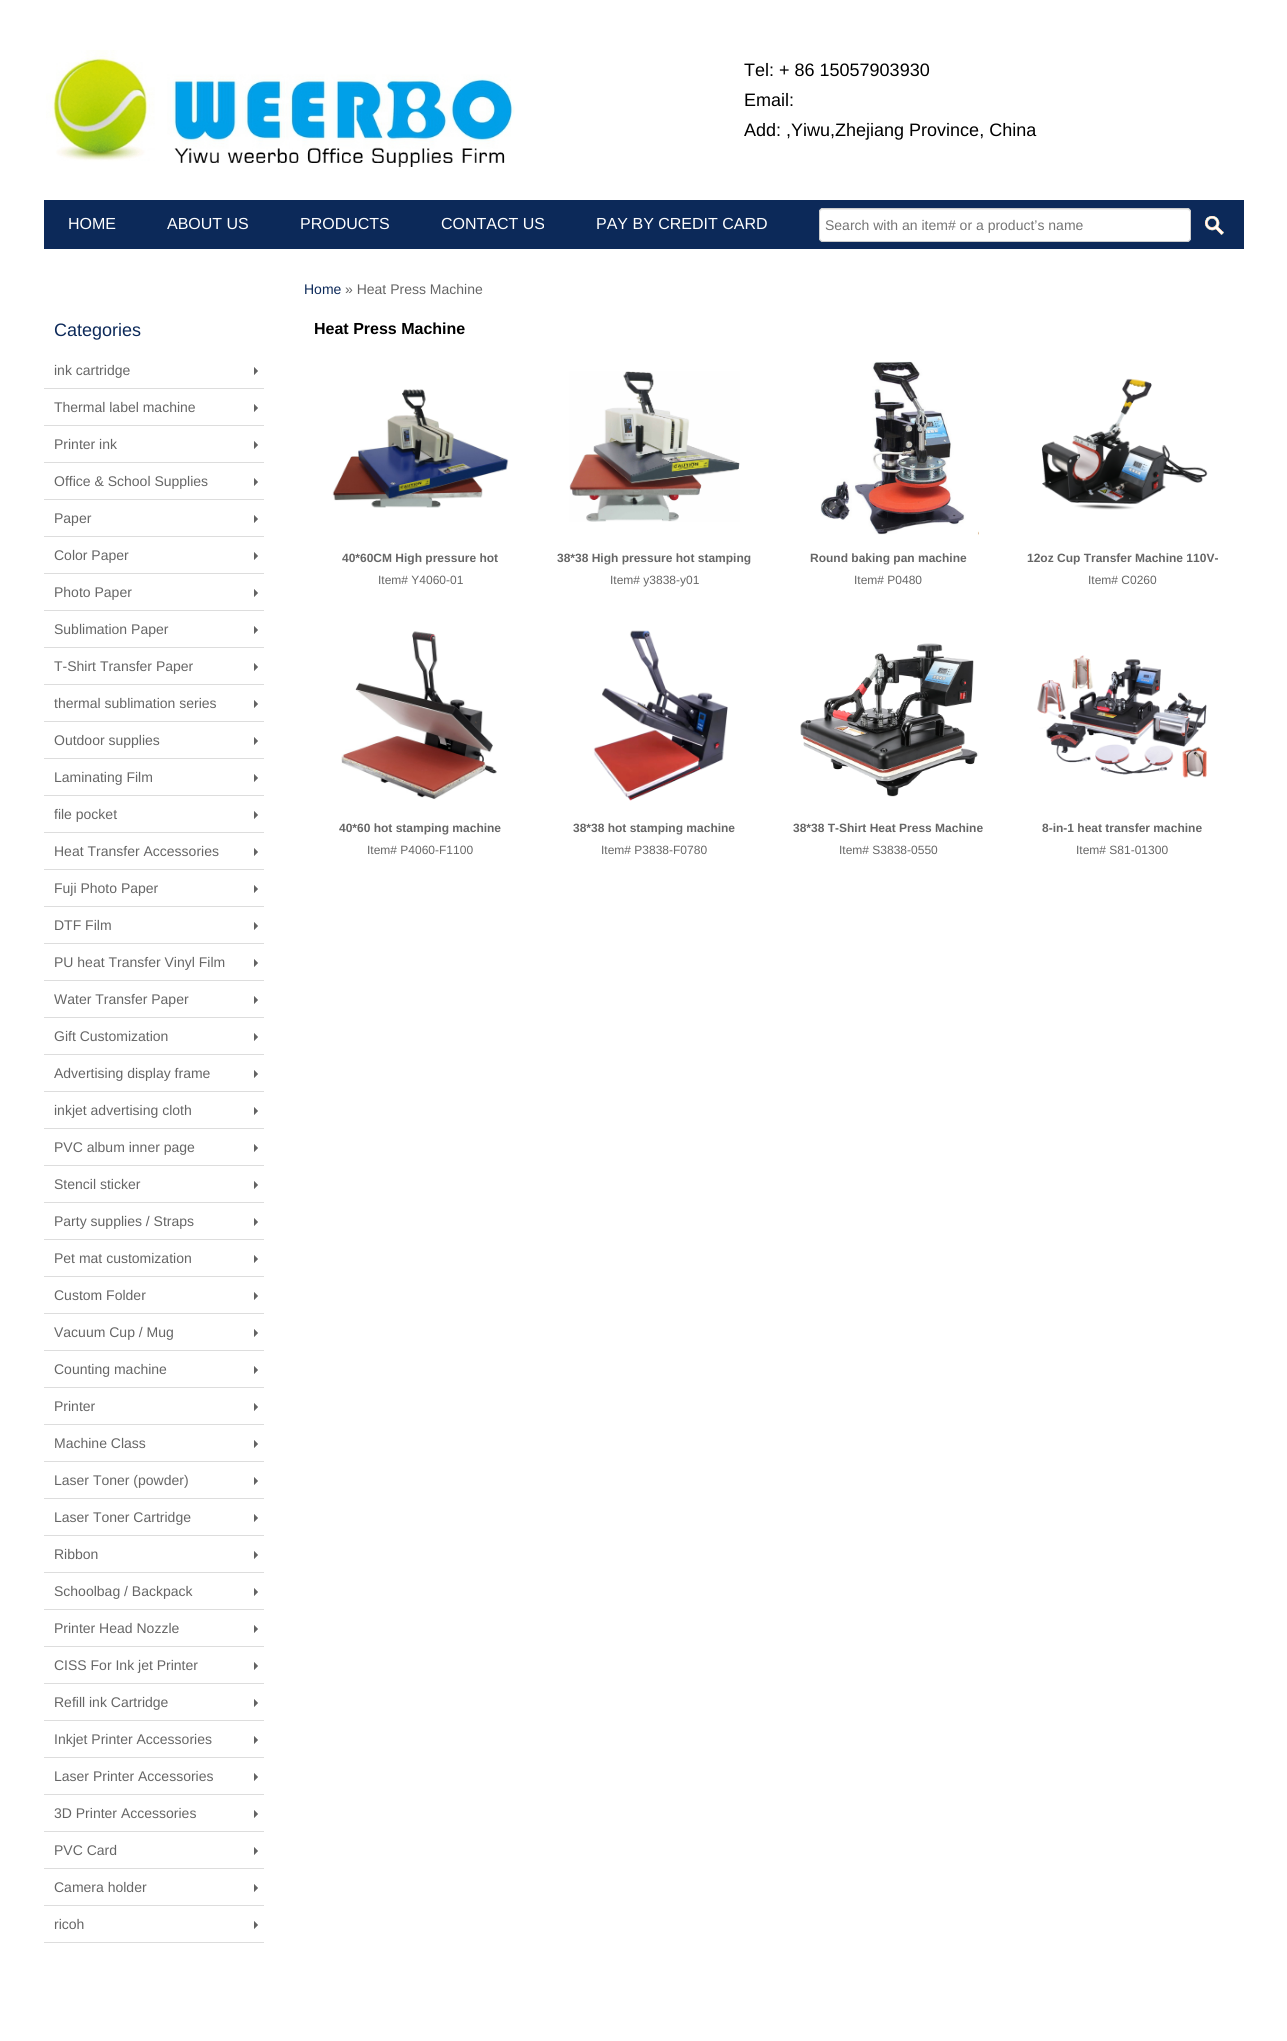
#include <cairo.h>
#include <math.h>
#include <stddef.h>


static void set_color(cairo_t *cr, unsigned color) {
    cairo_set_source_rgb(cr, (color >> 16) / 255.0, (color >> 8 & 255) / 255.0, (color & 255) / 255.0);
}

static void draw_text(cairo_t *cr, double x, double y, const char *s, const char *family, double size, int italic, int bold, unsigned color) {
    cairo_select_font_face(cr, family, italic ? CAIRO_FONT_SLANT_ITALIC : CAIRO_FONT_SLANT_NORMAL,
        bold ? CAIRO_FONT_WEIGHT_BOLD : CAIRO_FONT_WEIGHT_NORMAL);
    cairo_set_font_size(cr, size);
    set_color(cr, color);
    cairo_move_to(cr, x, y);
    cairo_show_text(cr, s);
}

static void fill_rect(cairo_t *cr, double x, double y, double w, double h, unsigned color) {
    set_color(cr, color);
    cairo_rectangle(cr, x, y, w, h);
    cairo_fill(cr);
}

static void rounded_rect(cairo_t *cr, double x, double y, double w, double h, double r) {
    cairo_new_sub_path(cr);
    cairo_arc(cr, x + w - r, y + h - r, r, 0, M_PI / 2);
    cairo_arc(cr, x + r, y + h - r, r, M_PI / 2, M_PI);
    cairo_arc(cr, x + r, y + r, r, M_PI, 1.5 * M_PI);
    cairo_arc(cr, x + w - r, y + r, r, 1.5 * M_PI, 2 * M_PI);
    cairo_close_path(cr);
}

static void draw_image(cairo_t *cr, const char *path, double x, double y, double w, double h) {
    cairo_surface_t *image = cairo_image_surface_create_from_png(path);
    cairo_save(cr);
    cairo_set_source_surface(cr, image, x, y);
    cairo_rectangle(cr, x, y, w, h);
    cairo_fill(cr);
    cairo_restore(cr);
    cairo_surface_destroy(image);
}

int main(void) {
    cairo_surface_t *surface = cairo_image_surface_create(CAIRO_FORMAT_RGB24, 1287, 2041);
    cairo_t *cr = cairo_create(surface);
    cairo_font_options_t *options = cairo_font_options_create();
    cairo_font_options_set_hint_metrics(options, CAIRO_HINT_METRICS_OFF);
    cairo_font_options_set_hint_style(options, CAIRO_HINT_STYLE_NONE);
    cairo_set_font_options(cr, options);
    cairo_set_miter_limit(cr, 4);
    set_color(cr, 0xFFFFFF);
    cairo_paint(cr);
    draw_image(cr, "assets/img1.png", 46, 50, 469, 117);
    draw_text(cr, 744, 76, "Tel: + 86 15057903930", "Liberation Sans", 18, 0, 0, 0x000000);
    draw_text(cr, 744, 106, "Email:", "Liberation Sans", 18, 0, 0, 0x000000);
    draw_text(cr, 744, 136, "Add: ,Yiwu,Zhejiang Province, China", "Liberation Sans", 18, 0, 0, 0x000000);
    fill_rect(cr, 44, 200, 1200, 49, 0x0C2959);
    draw_text(cr, 68, 229, "HOME", "Liberation Sans", 16, 0, 0, 0xFFFFFF);
    draw_text(cr, 167, 229, "ABOUT US", "Liberation Sans", 16, 0, 0, 0xFFFFFF);
    draw_text(cr, 300, 229, "PRODUCTS", "Liberation Sans", 16, 0, 0, 0xFFFFFF);
    draw_text(cr, 441, 229, "CONTACT US", "Liberation Sans", 16, 0, 0, 0xFFFFFF);
    draw_text(cr, 596, 229, "PAY BY CREDIT CARD", "Liberation Sans", 16, 0, 0, 0xFFFFFF);
    rounded_rect(cr, 819, 208, 372, 34, 4);
    cairo_fill(cr);
    set_color(cr, 0xECECEC);
    cairo_new_path(cr);
    cairo_move_to(cr, 823, 210);
    cairo_line_to(cr, 1187, 210);
    cairo_curve_to(cr, 1189, 210, 1190, 211, 1190, 213);
    cairo_curve_to(cr, 1190, 211, 1189, 209, 1187, 209);
    cairo_line_to(cr, 823, 209);
    cairo_line_to(cr, 821, 210);
    cairo_line_to(cr, 820, 213);
    cairo_curve_to(cr, 820, 211, 821, 210, 823, 210);
    cairo_close_path(cr);
    cairo_fill(cr);
    rounded_rect(cr, 819.5, 208.5, 371, 33, 3.5);
    set_color(cr, 0xCCCCCC);
    cairo_set_line_width(cr, 1);
    cairo_stroke(cr);
    draw_text(cr, 825, 230, "Search with an item# or a product’s name", "Liberation Sans", 14, 0, 0, 0x757575);
    draw_image(cr, "assets/img2.png", 1205, 216, 19, 19);
    draw_text(cr, 54, 336, "Categories", "Liberation Sans", 18, 0, 0, 0x0C2959);
    draw_image(cr, "assets/img3.png", 254, 367, 4, 8);
    fill_rect(cr, 44, 388, 220, 1, 0xDDDDDD);
    draw_text(cr, 54, 375, "ink cartridge", "Liberation Sans", 14, 0, 0, 0x666666);
    draw_image(cr, "assets/img3.png", 254, 404, 4, 8);
    fill_rect(cr, 44, 425, 220, 1, 0xDDDDDD);
    draw_text(cr, 54, 412, "Thermal label machine", "Liberation Sans", 14, 0, 0, 0x666666);
    draw_image(cr, "assets/img3.png", 254, 441, 4, 8);
    fill_rect(cr, 44, 462, 220, 1, 0xDDDDDD);
    draw_text(cr, 54, 449, "Printer ink", "Liberation Sans", 14, 0, 0, 0x666666);
    draw_image(cr, "assets/img3.png", 254, 478, 4, 8);
    fill_rect(cr, 44, 499, 220, 1, 0xDDDDDD);
    draw_text(cr, 54, 486, "Office & School Supplies", "Liberation Sans", 14, 0, 0, 0x666666);
    draw_image(cr, "assets/img3.png", 254, 515, 4, 8);
    fill_rect(cr, 44, 536, 220, 1, 0xDDDDDD);
    draw_text(cr, 54, 523, "Paper", "Liberation Sans", 14, 0, 0, 0x666666);
    draw_image(cr, "assets/img3.png", 254, 552, 4, 8);
    fill_rect(cr, 44, 573, 220, 1, 0xDDDDDD);
    draw_text(cr, 54, 560, "Color Paper", "Liberation Sans", 14, 0, 0, 0x666666);
    draw_image(cr, "assets/img3.png", 254, 589, 4, 8);
    fill_rect(cr, 44, 610, 220, 1, 0xDDDDDD);
    draw_text(cr, 54, 597, "Photo Paper", "Liberation Sans", 14, 0, 0, 0x666666);
    draw_image(cr, "assets/img3.png", 254, 626, 4, 8);
    fill_rect(cr, 44, 647, 220, 1, 0xDDDDDD);
    draw_text(cr, 54, 634, "Sublimation Paper", "Liberation Sans", 14, 0, 0, 0x666666);
    draw_image(cr, "assets/img3.png", 254, 663, 4, 8);
    fill_rect(cr, 44, 684, 220, 1, 0xDDDDDD);
    draw_text(cr, 54, 671, "T-Shirt Transfer Paper", "Liberation Sans", 14, 0, 0, 0x666666);
    draw_image(cr, "assets/img3.png", 254, 700, 4, 8);
    fill_rect(cr, 44, 721, 220, 1, 0xDDDDDD);
    draw_text(cr, 54, 708, "thermal sublimation series", "Liberation Sans", 14, 0, 0, 0x666666);
    draw_image(cr, "assets/img3.png", 254, 737, 4, 8);
    fill_rect(cr, 44, 758, 220, 1, 0xDDDDDD);
    draw_text(cr, 54, 745, "Outdoor supplies", "Liberation Sans", 14, 0, 0, 0x666666);
    draw_image(cr, "assets/img3.png", 254, 774, 4, 8);
    fill_rect(cr, 44, 795, 220, 1, 0xDDDDDD);
    draw_text(cr, 54, 782, "Laminating Film", "Liberation Sans", 14, 0, 0, 0x666666);
    draw_image(cr, "assets/img3.png", 254, 811, 4, 8);
    fill_rect(cr, 44, 832, 220, 1, 0xDDDDDD);
    draw_text(cr, 54, 819, "file pocket", "Liberation Sans", 14, 0, 0, 0x666666);
    draw_image(cr, "assets/img3.png", 254, 848, 4, 8);
    fill_rect(cr, 44, 869, 220, 1, 0xDDDDDD);
    draw_text(cr, 54, 856, "Heat Transfer Accessories", "Liberation Sans", 14, 0, 0, 0x666666);
    draw_image(cr, "assets/img3.png", 254, 885, 4, 8);
    fill_rect(cr, 44, 906, 220, 1, 0xDDDDDD);
    draw_text(cr, 54, 893, "Fuji Photo Paper", "Liberation Sans", 14, 0, 0, 0x666666);
    draw_image(cr, "assets/img3.png", 254, 922, 4, 8);
    fill_rect(cr, 44, 943, 220, 1, 0xDDDDDD);
    draw_text(cr, 54, 930, "DTF Film", "Liberation Sans", 14, 0, 0, 0x666666);
    draw_image(cr, "assets/img3.png", 254, 959, 4, 8);
    fill_rect(cr, 44, 980, 220, 1, 0xDDDDDD);
    draw_text(cr, 54, 967, "PU heat Transfer Vinyl Film", "Liberation Sans", 14, 0, 0, 0x666666);
    draw_image(cr, "assets/img3.png", 254, 996, 4, 8);
    fill_rect(cr, 44, 1017, 220, 1, 0xDDDDDD);
    draw_text(cr, 54, 1004, "Water Transfer Paper", "Liberation Sans", 14, 0, 0, 0x666666);
    draw_image(cr, "assets/img3.png", 254, 1033, 4, 8);
    fill_rect(cr, 44, 1054, 220, 1, 0xDDDDDD);
    draw_text(cr, 54, 1041, "Gift Customization", "Liberation Sans", 14, 0, 0, 0x666666);
    draw_image(cr, "assets/img3.png", 254, 1070, 4, 8);
    fill_rect(cr, 44, 1091, 220, 1, 0xDDDDDD);
    draw_text(cr, 54, 1078, "Advertising display frame", "Liberation Sans", 14, 0, 0, 0x666666);
    draw_image(cr, "assets/img3.png", 254, 1107, 4, 8);
    fill_rect(cr, 44, 1128, 220, 1, 0xDDDDDD);
    draw_text(cr, 54, 1115, "inkjet advertising cloth", "Liberation Sans", 14, 0, 0, 0x666666);
    draw_image(cr, "assets/img3.png", 254, 1144, 4, 8);
    fill_rect(cr, 44, 1165, 220, 1, 0xDDDDDD);
    draw_text(cr, 54, 1152, "PVC album inner page", "Liberation Sans", 14, 0, 0, 0x666666);
    draw_image(cr, "assets/img3.png", 254, 1181, 4, 8);
    fill_rect(cr, 44, 1202, 220, 1, 0xDDDDDD);
    draw_text(cr, 54, 1189, "Stencil sticker", "Liberation Sans", 14, 0, 0, 0x666666);
    draw_image(cr, "assets/img3.png", 254, 1218, 4, 8);
    fill_rect(cr, 44, 1239, 220, 1, 0xDDDDDD);
    draw_text(cr, 54, 1226, "Party supplies / Straps", "Liberation Sans", 14, 0, 0, 0x666666);
    draw_image(cr, "assets/img3.png", 254, 1255, 4, 8);
    fill_rect(cr, 44, 1276, 220, 1, 0xDDDDDD);
    draw_text(cr, 54, 1263, "Pet mat customization", "Liberation Sans", 14, 0, 0, 0x666666);
    draw_image(cr, "assets/img3.png", 254, 1292, 4, 8);
    fill_rect(cr, 44, 1313, 220, 1, 0xDDDDDD);
    draw_text(cr, 54, 1300, "Custom Folder", "Liberation Sans", 14, 0, 0, 0x666666);
    draw_image(cr, "assets/img3.png", 254, 1329, 4, 8);
    fill_rect(cr, 44, 1350, 220, 1, 0xDDDDDD);
    draw_text(cr, 54, 1337, "Vacuum Cup / Mug", "Liberation Sans", 14, 0, 0, 0x666666);
    draw_image(cr, "assets/img3.png", 254, 1366, 4, 8);
    fill_rect(cr, 44, 1387, 220, 1, 0xDDDDDD);
    draw_text(cr, 54, 1374, "Counting machine", "Liberation Sans", 14, 0, 0, 0x666666);
    draw_image(cr, "assets/img3.png", 254, 1403, 4, 8);
    fill_rect(cr, 44, 1424, 220, 1, 0xDDDDDD);
    draw_text(cr, 54, 1411, "Printer", "Liberation Sans", 14, 0, 0, 0x666666);
    draw_image(cr, "assets/img3.png", 254, 1440, 4, 8);
    fill_rect(cr, 44, 1461, 220, 1, 0xDDDDDD);
    draw_text(cr, 54, 1448, "Machine Class", "Liberation Sans", 14, 0, 0, 0x666666);
    draw_image(cr, "assets/img3.png", 254, 1477, 4, 8);
    fill_rect(cr, 44, 1498, 220, 1, 0xDDDDDD);
    draw_text(cr, 54, 1485, "Laser Toner (powder)", "Liberation Sans", 14, 0, 0, 0x666666);
    draw_image(cr, "assets/img3.png", 254, 1514, 4, 8);
    fill_rect(cr, 44, 1535, 220, 1, 0xDDDDDD);
    draw_text(cr, 54, 1522, "Laser Toner Cartridge", "Liberation Sans", 14, 0, 0, 0x666666);
    draw_image(cr, "assets/img3.png", 254, 1551, 4, 8);
    fill_rect(cr, 44, 1572, 220, 1, 0xDDDDDD);
    draw_text(cr, 54, 1559, "Ribbon", "Liberation Sans", 14, 0, 0, 0x666666);
    draw_image(cr, "assets/img3.png", 254, 1588, 4, 8);
    fill_rect(cr, 44, 1609, 220, 1, 0xDDDDDD);
    draw_text(cr, 54, 1596, "Schoolbag / Backpack", "Liberation Sans", 14, 0, 0, 0x666666);
    draw_image(cr, "assets/img3.png", 254, 1625, 4, 8);
    fill_rect(cr, 44, 1646, 220, 1, 0xDDDDDD);
    draw_text(cr, 54, 1633, "Printer Head Nozzle", "Liberation Sans", 14, 0, 0, 0x666666);
    draw_image(cr, "assets/img3.png", 254, 1662, 4, 8);
    fill_rect(cr, 44, 1683, 220, 1, 0xDDDDDD);
    draw_text(cr, 54, 1670, "CISS For Ink jet Printer", "Liberation Sans", 14, 0, 0, 0x666666);
    draw_image(cr, "assets/img3.png", 254, 1699, 4, 8);
    fill_rect(cr, 44, 1720, 220, 1, 0xDDDDDD);
    draw_text(cr, 54, 1707, "Refill ink Cartridge", "Liberation Sans", 14, 0, 0, 0x666666);
    draw_image(cr, "assets/img3.png", 254, 1736, 4, 8);
    fill_rect(cr, 44, 1757, 220, 1, 0xDDDDDD);
    draw_text(cr, 54, 1744, "Inkjet Printer Accessories", "Liberation Sans", 14, 0, 0, 0x666666);
    draw_image(cr, "assets/img3.png", 254, 1773, 4, 8);
    fill_rect(cr, 44, 1794, 220, 1, 0xDDDDDD);
    draw_text(cr, 54, 1781, "Laser Printer Accessories", "Liberation Sans", 14, 0, 0, 0x666666);
    draw_image(cr, "assets/img3.png", 254, 1810, 4, 8);
    fill_rect(cr, 44, 1831, 220, 1, 0xDDDDDD);
    draw_text(cr, 54, 1818, "3D Printer Accessories", "Liberation Sans", 14, 0, 0, 0x666666);
    draw_image(cr, "assets/img3.png", 254, 1847, 4, 8);
    fill_rect(cr, 44, 1868, 220, 1, 0xDDDDDD);
    draw_text(cr, 54, 1855, "PVC Card", "Liberation Sans", 14, 0, 0, 0x666666);
    draw_image(cr, "assets/img3.png", 254, 1884, 4, 8);
    fill_rect(cr, 44, 1905, 220, 1, 0xDDDDDD);
    draw_text(cr, 54, 1892, "Camera holder", "Liberation Sans", 14, 0, 0, 0x666666);
    draw_image(cr, "assets/img3.png", 254, 1921, 4, 8);
    fill_rect(cr, 44, 1942, 220, 1, 0xDDDDDD);
    draw_text(cr, 54, 1929, "ricoh", "Liberation Sans", 14, 0, 0, 0x666666);
    draw_text(cr, 304, 294, "Home", "Liberation Sans", 14, 0, 0, 0x0C2959);
    draw_text(cr, 345, 294, "» Heat Press Machine", "Liberation Sans", 14, 0, 0, 0x666666);
    draw_text(cr, 314, 334, "Heat Press Machine", "Liberation Sans", 16, 0, 1, 0x000000);
    draw_image(cr, "assets/img4.png", 332, 389, 177, 119);
    draw_text(cr, 342, 562, "40*60CM High pressure hot", "Liberation Sans", 12, 0, 1, 0x666666);
    draw_text(cr, 378, 584, "Item# Y4060-01", "Liberation Sans", 12, 0, 0, 0x666666);
    draw_image(cr, "assets/img5.png", 569, 371, 171, 151);
    draw_text(cr, 557, 562, "38*38 High pressure hot stamping", "Liberation Sans", 12, 0, 1, 0x666666);
    draw_text(cr, 610, 584, "Item# y3838-y01", "Liberation Sans", 12, 0, 0, 0x666666);
    draw_image(cr, "assets/img6.png", 820, 361, 159, 174);
    draw_text(cr, 810, 562, "Round baking pan machine", "Liberation Sans", 12, 0, 1, 0x666666);
    draw_text(cr, 854, 584, "Item# P0480", "Liberation Sans", 12, 0, 0, 0x666666);
    draw_image(cr, "assets/img7.png", 1041, 378, 167, 132);
    draw_text(cr, 1027, 562, "12oz Cup Transfer Machine 110V-", "Liberation Sans", 12, 0, 1, 0x666666);
    draw_text(cr, 1088, 584, "Item# C0260", "Liberation Sans", 12, 0, 0, 0x666666);
    draw_image(cr, "assets/img8.png", 341, 631, 156, 169);
    draw_text(cr, 339, 832, "40*60 hot stamping machine", "Liberation Sans", 12, 0, 1, 0x666666);
    draw_text(cr, 367, 854, "Item# P4060-F1100", "Liberation Sans", 12, 0, 0, 0x666666);
    draw_image(cr, "assets/img9.png", 593, 630, 135, 171);
    draw_text(cr, 573, 832, "38*38 hot stamping machine", "Liberation Sans", 12, 0, 1, 0x666666);
    draw_text(cr, 601, 854, "Item# P3838-F0780", "Liberation Sans", 12, 0, 0, 0x666666);
    draw_image(cr, "assets/img10.png", 800, 643, 179, 154);
    draw_text(cr, 793, 832, "38*38 T-Shirt Heat Press Machine", "Liberation Sans", 12, 0, 1, 0x666666);
    draw_text(cr, 839, 854, "Item# S3838-0550", "Liberation Sans", 12, 0, 0, 0x666666);
    draw_image(cr, "assets/img11.png", 1037, 655, 170, 123);
    draw_text(cr, 1042, 832, "8-in-1 heat transfer machine", "Liberation Sans", 12, 0, 1, 0x666666);
    draw_text(cr, 1076, 854, "Item# S81-01300", "Liberation Sans", 12, 0, 0, 0x666666);
    cairo_surface_write_to_png(surface, "output.png");
    cairo_font_options_destroy(options);
    cairo_destroy(cr);
    cairo_surface_destroy(surface);
    return 0;
}
